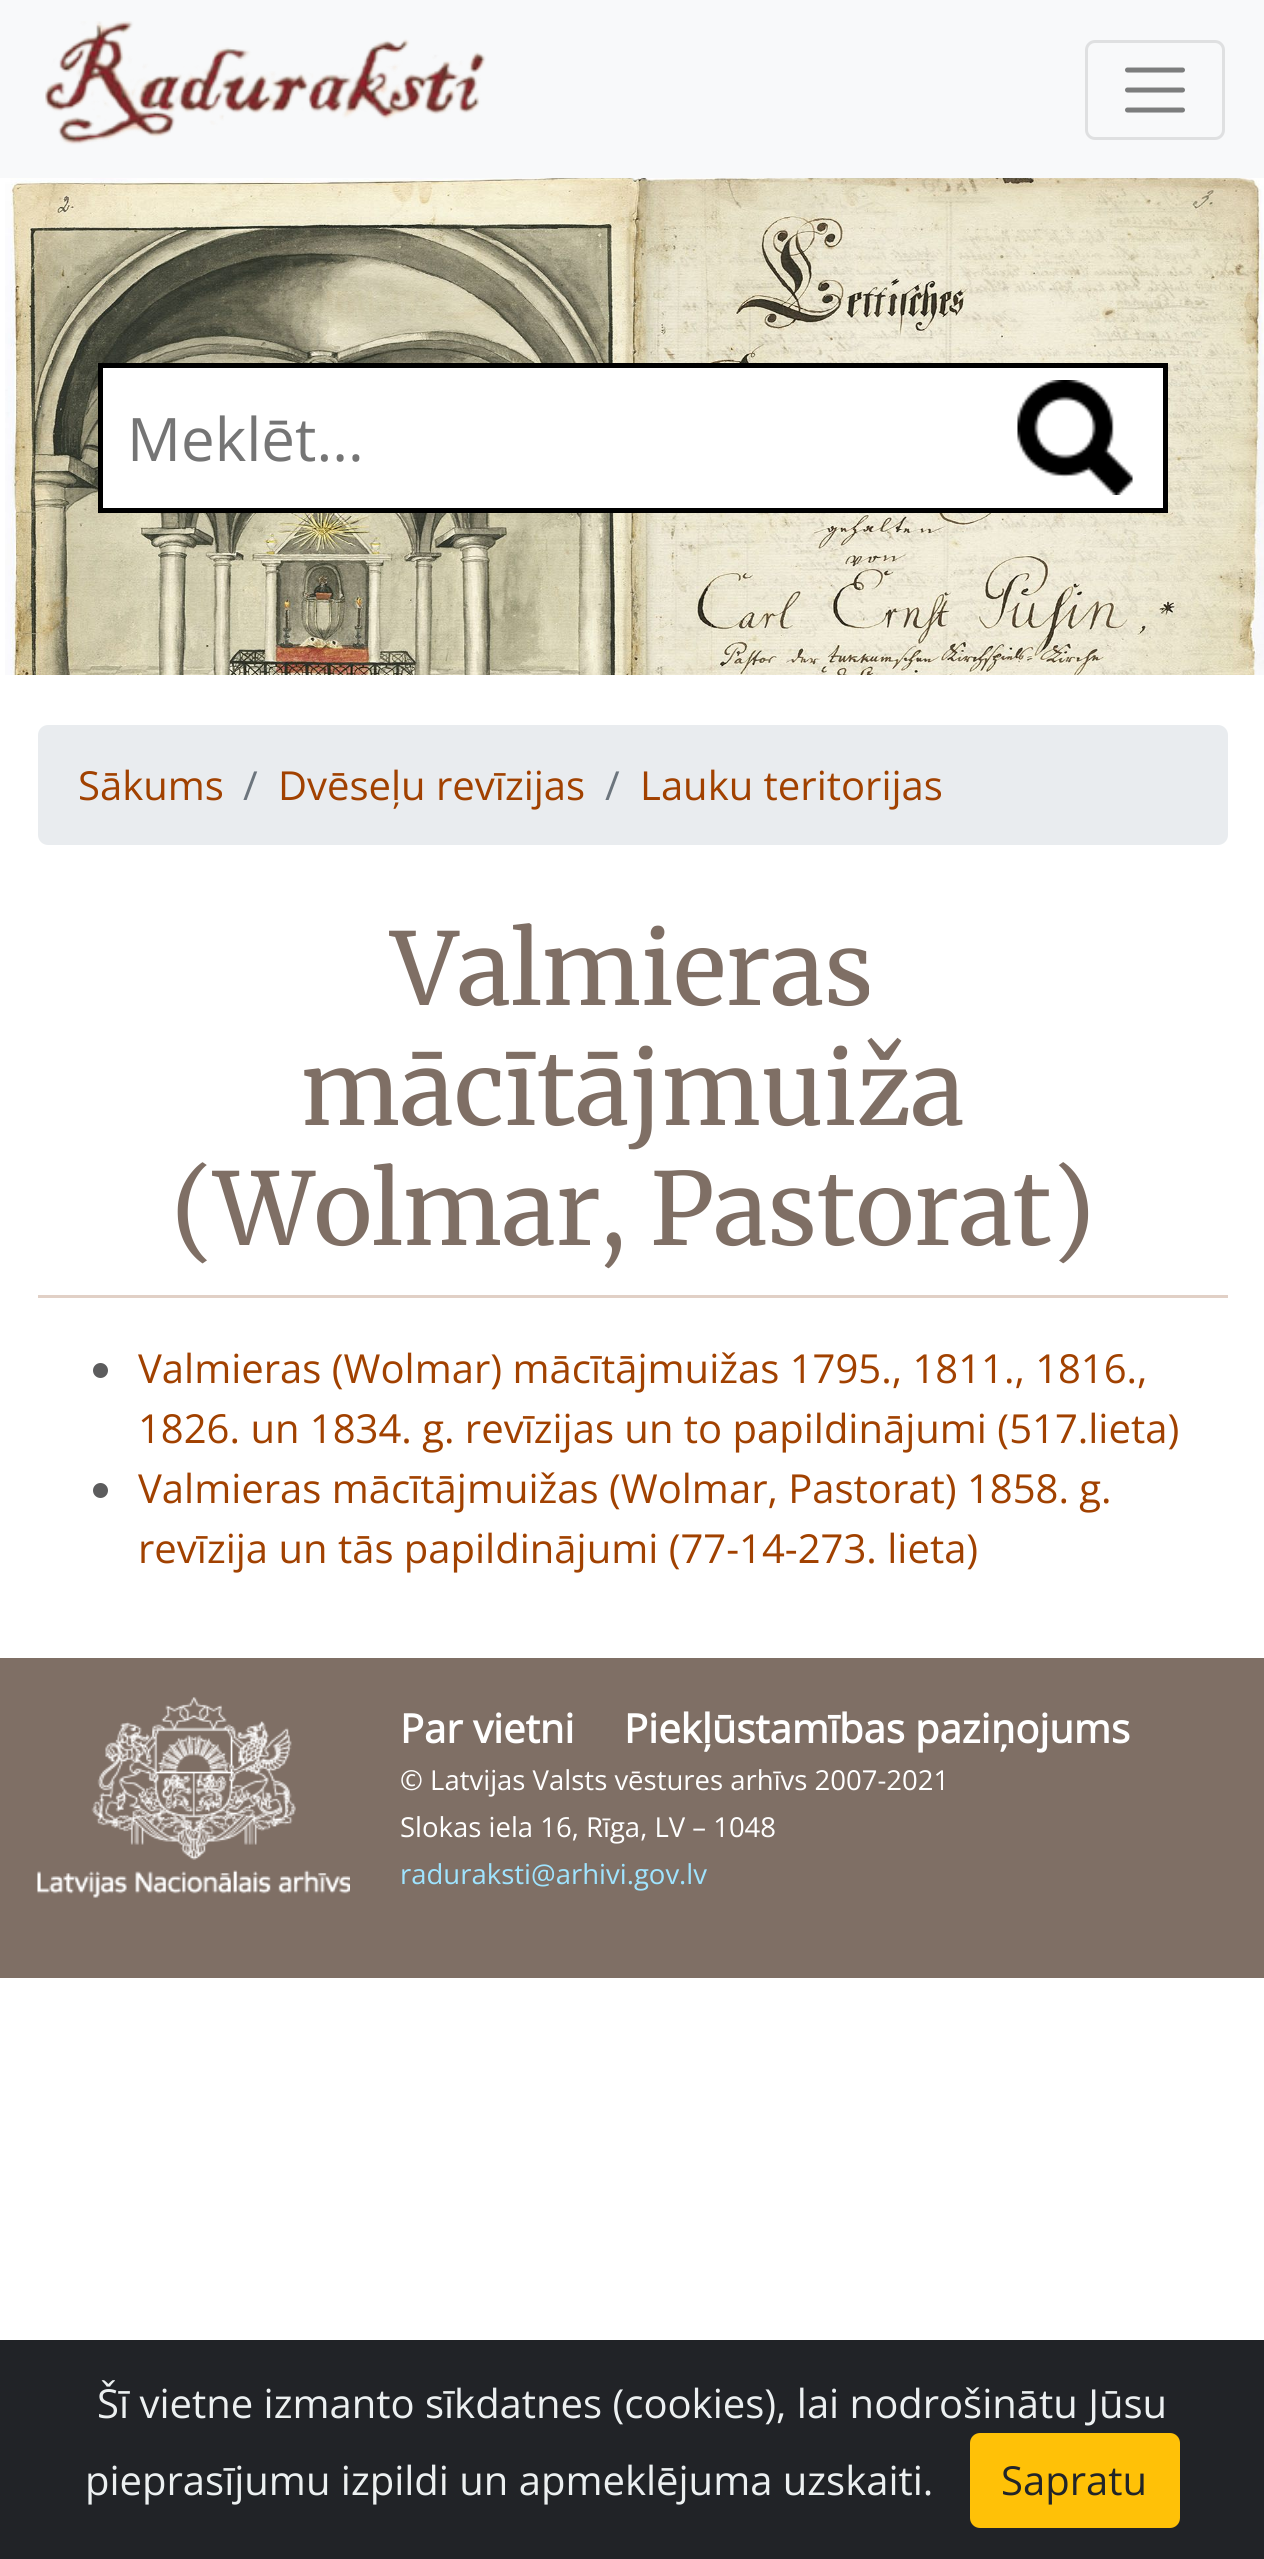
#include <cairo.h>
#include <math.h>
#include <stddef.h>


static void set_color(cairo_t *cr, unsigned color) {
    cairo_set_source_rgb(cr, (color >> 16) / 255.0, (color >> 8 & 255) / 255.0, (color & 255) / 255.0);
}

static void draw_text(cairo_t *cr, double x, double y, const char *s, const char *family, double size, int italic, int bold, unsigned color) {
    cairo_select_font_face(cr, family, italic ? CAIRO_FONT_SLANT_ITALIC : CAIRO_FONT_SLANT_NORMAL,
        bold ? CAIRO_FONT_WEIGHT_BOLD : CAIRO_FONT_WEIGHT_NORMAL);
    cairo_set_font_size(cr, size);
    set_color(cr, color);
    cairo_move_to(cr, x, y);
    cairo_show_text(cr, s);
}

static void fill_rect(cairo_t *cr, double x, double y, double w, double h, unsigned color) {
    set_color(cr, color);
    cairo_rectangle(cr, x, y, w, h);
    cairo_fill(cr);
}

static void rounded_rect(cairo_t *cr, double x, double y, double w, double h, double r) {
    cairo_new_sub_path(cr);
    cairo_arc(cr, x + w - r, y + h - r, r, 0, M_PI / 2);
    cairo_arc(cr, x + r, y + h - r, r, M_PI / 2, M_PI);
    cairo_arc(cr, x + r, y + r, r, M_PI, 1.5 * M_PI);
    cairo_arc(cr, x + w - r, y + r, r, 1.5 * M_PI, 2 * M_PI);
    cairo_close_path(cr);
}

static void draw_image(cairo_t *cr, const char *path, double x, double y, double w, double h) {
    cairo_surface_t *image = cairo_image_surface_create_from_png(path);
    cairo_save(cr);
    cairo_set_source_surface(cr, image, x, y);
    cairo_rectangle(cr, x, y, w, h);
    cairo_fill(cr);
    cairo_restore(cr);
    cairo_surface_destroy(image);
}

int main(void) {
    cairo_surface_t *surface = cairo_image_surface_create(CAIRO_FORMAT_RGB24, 1264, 2559);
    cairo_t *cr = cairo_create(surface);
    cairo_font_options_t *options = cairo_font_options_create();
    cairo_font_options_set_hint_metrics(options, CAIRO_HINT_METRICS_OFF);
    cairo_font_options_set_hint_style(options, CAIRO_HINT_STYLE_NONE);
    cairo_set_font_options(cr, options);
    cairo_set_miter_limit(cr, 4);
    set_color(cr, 0xFFFFFF);
    cairo_paint(cr);
    fill_rect(cr, 0, 0, 1264, 178, 0xF8F9FA);
    draw_image(cr, "assets/img1.png", 45, 21, 441, 124);
    rounded_rect(cr, 1086.5, 41.5, 137, 97, 8.5);
    set_color(cr, 0xDFE0E1);
    cairo_set_line_width(cr, 3);
    cairo_stroke(cr);
    cairo_new_path(cr);
    cairo_move_to(cr, 1127.5, 70);
    cairo_line_to(cr, 1182.5, 70);
    cairo_move_to(cr, 1127.5, 90);
    cairo_line_to(cr, 1182.5, 90);
    cairo_move_to(cr, 1127.5, 110);
    cairo_line_to(cr, 1182.5, 110);
    set_color(cr, 0x7C7D7D);
    cairo_set_line_width(cr, 5);
    cairo_set_line_cap(cr, CAIRO_LINE_CAP_ROUND);
    cairo_stroke(cr);
    draw_image(cr, "assets/img2.png", 5, 178, 1259, 497);
    set_color(cr, 0xFFFFFF);
    cairo_rectangle(cr, 100.5, 365.5, 1065, 145);
    cairo_fill_preserve(cr);
    set_color(cr, 0x000000);
    cairo_set_line_cap(cr, CAIRO_LINE_CAP_BUTT);
    cairo_stroke(cr);
    draw_text(cr, 127, 461, "Meklēt...", "Open Sans", 60, 0, 0, 0x757575);
    draw_image(cr, "assets/img3.png", 1017, 380, 116, 115);
    set_color(cr, 0xE9ECEF);
    rounded_rect(cr, 38, 725, 1190, 120, 10);
    cairo_fill(cr);
    draw_text(cr, 78, 800, "Sākums", "Open Sans", 40, 0, 0, 0xA14100);
    draw_text(cr, 243, 800, "/", "Open Sans", 40, 0, 0, 0x6C757D);
    draw_text(cr, 278, 800, "Dvēseļu revīzijas", "Open Sans", 40, 0, 0, 0xA14100);
    draw_text(cr, 605, 800, "/", "Open Sans", 40, 0, 0, 0x6C757D);
    draw_text(cr, 640, 800, "Lauku teritorijas", "Open Sans", 40, 0, 0, 0xA14100);
    fill_rect(cr, 38, 1295, 1190, 3, 0xE1D0C6);
    draw_text(cr, 391, 1005, "Valmieras", "Merriweather Light", 100, 0, 0, 0x7F6F65);
    draw_text(cr, 301, 1125, "mācītājmuiža", "Merriweather Light", 100, 0, 0, 0x7F6F65);
    draw_text(cr, 171, 1245, "(Wolmar, Pastorat)", "Merriweather Light", 100, 0, 0, 0x7F6F65);
    set_color(cr, 0x5C5C5D);
    cairo_new_path(cr);
    cairo_arc(cr, 100.5, 1370.5, 7.5, 0, 2 * M_PI);
    cairo_fill(cr);
    draw_text(cr, 138, 1383, "Valmieras (Wolmar) mācītājmuižas 1795., 1811., 1816.,", "Open Sans", 40, 0, 0, 0xA14100);
    draw_text(cr, 138, 1443, "1826. un 1834. g. revīzijas un to papildinājumi (517.lieta)", "Open Sans", 40, 0, 0, 0xA14100);
    set_color(cr, 0x5C5C5D);
    cairo_new_path(cr);
    cairo_arc(cr, 100.5, 1490.5, 7.5, 0, 2 * M_PI);
    cairo_fill(cr);
    draw_text(cr, 138, 1503, "Valmieras mācītājmuižas (Wolmar, Pastorat) 1858. g.", "Open Sans", 40, 0, 0, 0xA14100);
    draw_text(cr, 138, 1563, "revīzija un tās papildinājumi (77-14-273. lieta)", "Open Sans", 40, 0, 0, 0xA14100);
    fill_rect(cr, 0, 1658, 1264, 320, 0x7F6F65);
    draw_image(cr, "assets/img4.png", 37, 1697, 313, 201);
    draw_text(cr, 400, 1743, "Par vietni", "Open Sans", 40, 0, 1, 0xFFFFFF);
    draw_text(cr, 624, 1743, "Piekļūstamības paziņojums", "Open Sans", 40, 0, 1, 0xFFFFFF);
    draw_text(cr, 400, 1790, "© Latvijas Valsts vēstures arhīvs 2007-2021", "Open Sans", 27.5, 0, 0, 0xFFFFFF);
    draw_text(cr, 400, 1837, "Slokas iela 16, Rīga, LV – 1048", "Open Sans", 27.5, 0, 0, 0xFFFFFF);
    draw_text(cr, 400, 1884, "raduraksti@arhivi.gov.lv", "Open Sans", 27.5, 0, 0, 0x9FE4FF);
    fill_rect(cr, 0, 2340, 1264, 219, 0x212327);
    draw_text(cr, 97, 2418, "Šī vietne izmanto sīkdatnes (cookies), lai nodrošinātu Jūsu", "Open Sans", 40, 0, 0, 0xECF0F1);
    draw_text(cr, 85, 2495, "pieprasījumu izpildi un apmeklējuma uzskaiti.", "Open Sans", 40, 0, 0, 0xECF0F1);
    set_color(cr, 0xFFC107);
    rounded_rect(cr, 971.5, 2434.5, 207, 92, 8.5);
    cairo_fill_preserve(cr);
    cairo_set_line_width(cr, 3);
    cairo_stroke(cr);
    draw_text(cr, 1001, 2495, "Sapratu", "Open Sans", 40, 0, 0, 0x212529);
    cairo_surface_write_to_png(surface, "output.png");
    cairo_font_options_destroy(options);
    cairo_destroy(cr);
    cairo_surface_destroy(surface);
    return 0;
}
